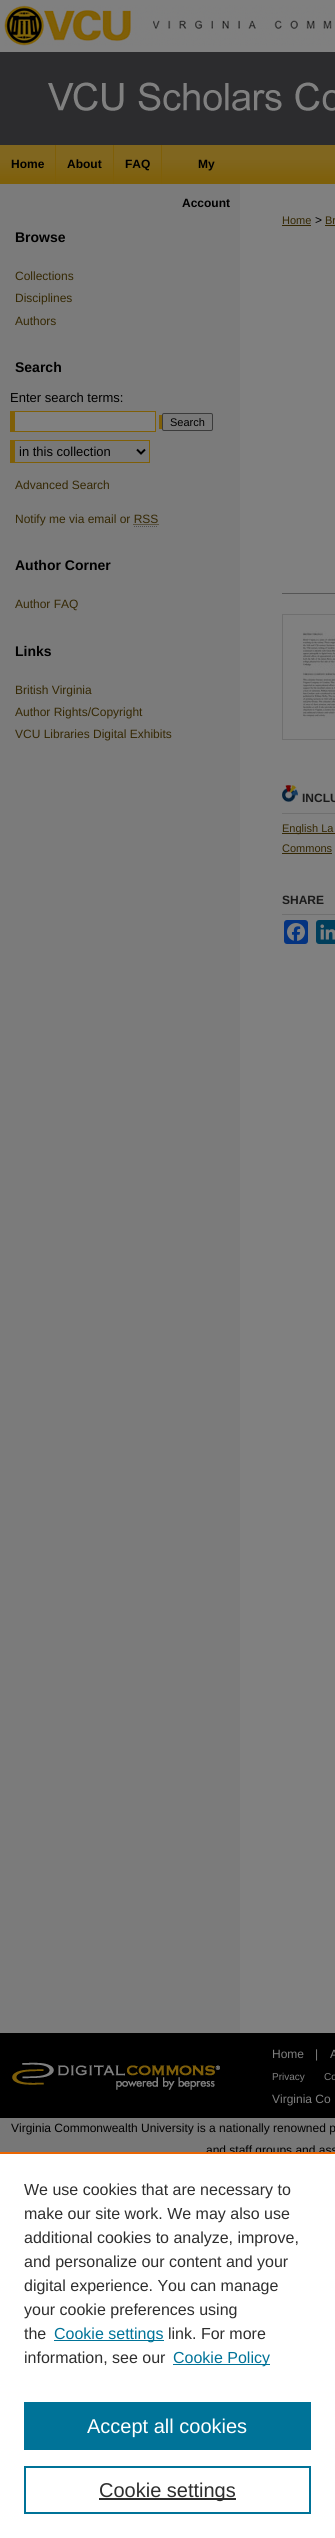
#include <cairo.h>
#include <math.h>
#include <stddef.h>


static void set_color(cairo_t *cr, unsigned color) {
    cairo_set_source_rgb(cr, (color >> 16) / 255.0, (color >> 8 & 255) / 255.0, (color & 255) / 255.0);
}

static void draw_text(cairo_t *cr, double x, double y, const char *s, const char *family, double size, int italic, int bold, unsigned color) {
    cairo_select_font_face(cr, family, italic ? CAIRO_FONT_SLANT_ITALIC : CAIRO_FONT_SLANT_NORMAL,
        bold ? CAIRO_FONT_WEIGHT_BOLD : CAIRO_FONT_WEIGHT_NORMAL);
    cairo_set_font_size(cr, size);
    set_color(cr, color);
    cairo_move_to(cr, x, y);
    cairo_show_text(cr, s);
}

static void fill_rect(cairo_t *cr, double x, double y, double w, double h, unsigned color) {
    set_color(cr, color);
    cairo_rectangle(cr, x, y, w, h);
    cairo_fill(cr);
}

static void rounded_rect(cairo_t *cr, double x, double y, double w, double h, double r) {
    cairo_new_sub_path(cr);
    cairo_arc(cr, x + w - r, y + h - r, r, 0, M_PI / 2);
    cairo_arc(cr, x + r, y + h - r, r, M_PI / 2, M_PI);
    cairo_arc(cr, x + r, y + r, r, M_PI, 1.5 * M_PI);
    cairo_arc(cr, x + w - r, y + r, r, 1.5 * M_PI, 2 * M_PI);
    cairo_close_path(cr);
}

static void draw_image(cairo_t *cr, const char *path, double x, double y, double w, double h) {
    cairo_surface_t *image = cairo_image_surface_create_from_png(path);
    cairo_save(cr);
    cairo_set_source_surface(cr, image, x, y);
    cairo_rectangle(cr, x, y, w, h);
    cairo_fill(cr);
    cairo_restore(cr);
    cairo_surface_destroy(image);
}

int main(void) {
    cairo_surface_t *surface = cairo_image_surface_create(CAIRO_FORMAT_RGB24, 335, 2538);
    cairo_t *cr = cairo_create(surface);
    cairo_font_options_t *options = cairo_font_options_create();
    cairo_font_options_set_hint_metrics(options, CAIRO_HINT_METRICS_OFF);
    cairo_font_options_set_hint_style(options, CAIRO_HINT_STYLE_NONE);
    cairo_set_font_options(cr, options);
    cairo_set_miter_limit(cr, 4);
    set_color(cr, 0x777777);
    cairo_paint(cr);
    fill_rect(cr, 0, 111, 335, 34, 0x2C2C2E);
    draw_image(cr, "assets/img1.png", 0, 0, 335, 111);
    draw_image(cr, "assets/img2.png", 4, 5, 328, 41);
    fill_rect(cr, 0, 145, 335, 15, 0x80661F);
    draw_image(cr, "assets/img3.png", 0, 160, 335, 24);
    fill_rect(cr, 55, 145, 1, 39, 0x7F5F08);
    draw_text(cr, 11, 168, "Home", "Liberation Sans", 12, 0, 1, 0x000000);
    fill_rect(cr, 113, 145, 1, 39, 0x7F5F08);
    draw_text(cr, 67, 168, "About", "Liberation Sans", 12, 0, 1, 0x000000);
    fill_rect(cr, 161, 145, 1, 39, 0x7F5F08);
    draw_text(cr, 125, 168, "FAQ", "Liberation Sans", 12, 0, 1, 0x000000);
    draw_text(cr, 198, 168, "My", "Liberation Sans", 12, 0, 1, 0x000000);
    fill_rect(cr, 0, 184, 240, 1849, 0x7B7B7B);
    draw_text(cr, 182, 207, "Account", "Liberation Sans", 12, 0, 1, 0x000000);
    fill_rect(cr, 240, 184, 95, 1849, 0x808080);
    draw_text(cr, 15, 242, "Browse", "Liberation Sans", 14, 0, 1, 0x000000);
    draw_text(cr, 15, 280, "Collections", "Liberation Sans", 12, 0, 0, 0x352803);
    draw_text(cr, 15, 302, "Disciplines", "Liberation Sans", 12, 0, 0, 0x352803);
    draw_text(cr, 15, 325, "Authors", "Liberation Sans", 12, 0, 0, 0x352803);
    draw_text(cr, 15, 372, "Search", "Liberation Sans", 14, 0, 1, 0x000000);
    draw_text(cr, 10, 402, "Enter search terms:", "Liberation Sans", 13, 0, 0, 0x000000);
    fill_rect(cr, 10, 411, 146, 21, 0x7F5F08);
    fill_rect(cr, 159, 415, 3, 14, 0x7F5F08);
    fill_rect(cr, 15, 412, 140, 19, 0x808080);
    set_color(cr, 0x787878);
    rounded_rect(cr, 162.5, 413.5, 50, 17, 1.5);
    cairo_fill_preserve(cr);
    set_color(cr, 0x3B3B3B);
    cairo_set_line_width(cr, 1);
    cairo_stroke(cr);
    draw_text(cr, 170, 426, "Search", "Liberation Sans", 11, 0, 0, 0x000000);
    fill_rect(cr, 15, 441, 134, 21, 0x787878);
    fill_rect(cr, 10, 440, 140, 1, 0x7F5F08);
    fill_rect(cr, 149, 440, 1, 23, 0x7F5F08);
    fill_rect(cr, 10, 462, 140, 1, 0x7F5F08);
    fill_rect(cr, 10, 440, 5, 23, 0x7F5F08);
    cairo_new_path(cr);
    cairo_move_to(cr, 137, 449.5);
    cairo_line_to(cr, 141, 453.5);
    cairo_line_to(cr, 145, 449.5);
    set_color(cr, 0x000000);
    cairo_set_line_width(cr, 2);
    cairo_stroke(cr);
    draw_text(cr, 19, 456, "in this collection", "Liberation Sans", 13, 0, 0, 0x000000);
    draw_text(cr, 15, 489, "Advanced Search", "Liberation Sans", 12, 0, 0, 0x352803);
    draw_text(cr, 15, 523, "Notify me via email or RSS", "Liberation Sans", 12, 0, 0, 0x352803);
    cairo_new_path(cr);
    cairo_move_to(cr, 133.5, 524.5);
    cairo_line_to(cr, 158.5, 524.5);
    cairo_set_line_width(cr, 1);
    cairo_set_dash(cr, (double[]){1, 1}, 2, 0);
    cairo_stroke(cr);
    cairo_new_path(cr);
    cairo_move_to(cr, 134, 526.5);
    cairo_line_to(cr, 158, 526.5);
    set_color(cr, 0x4D4D4D);
    cairo_stroke(cr);
    draw_text(cr, 15, 570, "Author Corner", "Liberation Sans", 14, 0, 1, 0x000000);
    draw_text(cr, 15, 608, "Author FAQ", "Liberation Sans", 12, 0, 0, 0x352803);
    draw_text(cr, 15, 656, "Links", "Liberation Sans", 14, 0, 1, 0x000000);
    draw_text(cr, 15, 694, "British Virginia", "Liberation Sans", 12, 0, 0, 0x352803);
    draw_text(cr, 15, 716, "Author Rights/Copyright", "Liberation Sans", 12, 0, 0, 0x352803);
    draw_text(cr, 15, 738, "VCU Libraries Digital Exhibits", "Liberation Sans", 12, 0, 0, 0x352803);
    draw_text(cr, 282, 224, "Home", "Liberation Sans", 11, 0, 0, 0x352803);
    fill_rect(cr, 282, 225, 29, 1, 0x352803);
    draw_text(cr, 315, 224, ">", "Liberation Sans", 12, 0, 0, 0x000000);
    draw_text(cr, 325, 224, "Br", "Liberation Sans", 11, 0, 0, 0x352803);
    fill_rect(cr, 325, 225, 10, 1, 0x352803);
    fill_rect(cr, 282, 593, 53, 1, 0x555555);
    cairo_rectangle(cr, 282.5, 614.5, 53, 125);
    set_color(cr, 0x6F6F6F);
    cairo_set_dash(cr, NULL, 0, 0);
    cairo_stroke(cr);
    draw_image(cr, "assets/img4.png", 303, 631, 32, 87);
    draw_image(cr, "assets/img5.png", 282, 785, 16, 17);
    fill_rect(cr, 282, 813, 53, 1, 0x6F6F6F);
    draw_text(cr, 302, 802, "INCLU", "Liberation Sans", 12, 0, 1, 0x1A1A1A);
    fill_rect(cr, 282, 833, 53, 1, 0x352803);
    draw_text(cr, 282, 832, "English La", "Liberation Sans", 11, 0, 0, 0x352803);
    draw_text(cr, 282, 852, "Commons", "Liberation Sans", 11, 0, 0, 0x352803);
    fill_rect(cr, 282, 853, 50, 1, 0x352803);
    fill_rect(cr, 282, 914, 53, 1, 0x6F6F6F);
    draw_text(cr, 282, 904, "SHARE", "Liberation Sans", 12, 0, 1, 0x1A1A1A);
    set_color(cr, 0x043380);
    rounded_rect(cr, 284, 920, 24, 24, 3);
    cairo_fill(cr);
    draw_image(cr, "assets/img6.png", 287, 923, 18, 18);
    set_color(cr, 0x003E5B);
    rounded_rect(cr, 316, 920, 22, 24, 3);
    cairo_fill(cr);
    draw_image(cr, "assets/img7.png", 320, 924, 15, 16);
    fill_rect(cr, 0, 2033, 335, 85, 0x000000);
    draw_text(cr, 272, 2058, "Home", "Liberation Sans", 12, 0, 0, 0x808080);
    draw_text(cr, 315, 2058, "|", "Liberation Sans", 12, 0, 0, 0x808080);
    draw_text(cr, 330, 2058, "A", "Liberation Sans", 12, 0, 0, 0x808080);
    draw_image(cr, "assets/img8.png", 12, 2062, 208, 28);
    draw_text(cr, 272, 2080, "Privacy", "Liberation Sans", 10, 0, 0, 0x808080);
    draw_text(cr, 324, 2080, "Co", "Liberation Sans", 10, 0, 0, 0x808080);
    draw_text(cr, 272, 2103, "Virginia Co", "Liberation Sans", 12, 0, 0, 0x808080);
    draw_text(cr, 11, 2132, "Virginia Commonwealth University is a nationally renowned p", "Liberation Sans", 12, 0, 0, 0x000000);
    draw_text(cr, 206, 2154, "and staff groups and ass", "Liberation Sans", 12, 0, 0, 0x000000);
    fill_rect(cr, 0, 2154, 335, 384, 0xFFFFFF);
    fill_rect(cr, 0, 2152, 335, 2, 0xEB6500);
    draw_text(cr, 24, 2195, "We use cookies that are necessary to", "Liberation Sans", 16, 0, 0, 0x2E2E2E);
    draw_text(cr, 24, 2219, "make our site work. We may also use", "Liberation Sans", 16, 0, 0, 0x2E2E2E);
    draw_text(cr, 24, 2243, "additional cookies to analyze, improve,", "Liberation Sans", 16, 0, 0, 0x2E2E2E);
    draw_text(cr, 24, 2267, "and personalize our content and your", "Liberation Sans", 16, 0, 0, 0x2E2E2E);
    draw_text(cr, 24, 2291, "digital experience. You can manage", "Liberation Sans", 16, 0, 0, 0x2E2E2E);
    draw_text(cr, 24, 2315, "your cookie preferences using", "Liberation Sans", 16, 0, 0, 0x2E2E2E);
    draw_text(cr, 24, 2339, "the", "Liberation Sans", 16, 0, 0, 0x2E2E2E);
    fill_rect(cr, 54, 2340, 110, 1, 0x007398);
    draw_text(cr, 54, 2339, "Cookie settings", "Liberation Sans", 16, 0, 0, 0x007398);
    draw_text(cr, 168, 2339, "link. For more", "Liberation Sans", 16, 0, 0, 0x2E2E2E);
    draw_text(cr, 24, 2363, "information, see our", "Liberation Sans", 16, 0, 0, 0x2E2E2E);
    fill_rect(cr, 173, 2364, 97, 1, 0x007398);
    draw_text(cr, 173, 2363, "Cookie Policy", "Liberation Sans", 16, 0, 0, 0x007398);
    fill_rect(cr, 24, 2402, 287, 48, 0x007398);
    draw_text(cr, 87, 2433, "Accept all cookies", "Liberation Sans", 20, 0, 0, 0xFFFFFF);
    cairo_rectangle(cr, 25, 2467, 285, 46);
    set_color(cr, 0x007398);
    cairo_set_line_width(cr, 2);
    cairo_stroke(cr);
    fill_rect(cr, 99, 2498, 137, 2, 0x2E2E2E);
    draw_text(cr, 99, 2497, "Cookie settings", "Liberation Sans", 20, 0, 0, 0x2E2E2E);
    cairo_surface_write_to_png(surface, "output.png");
    cairo_font_options_destroy(options);
    cairo_destroy(cr);
    cairo_surface_destroy(surface);
    return 0;
}
